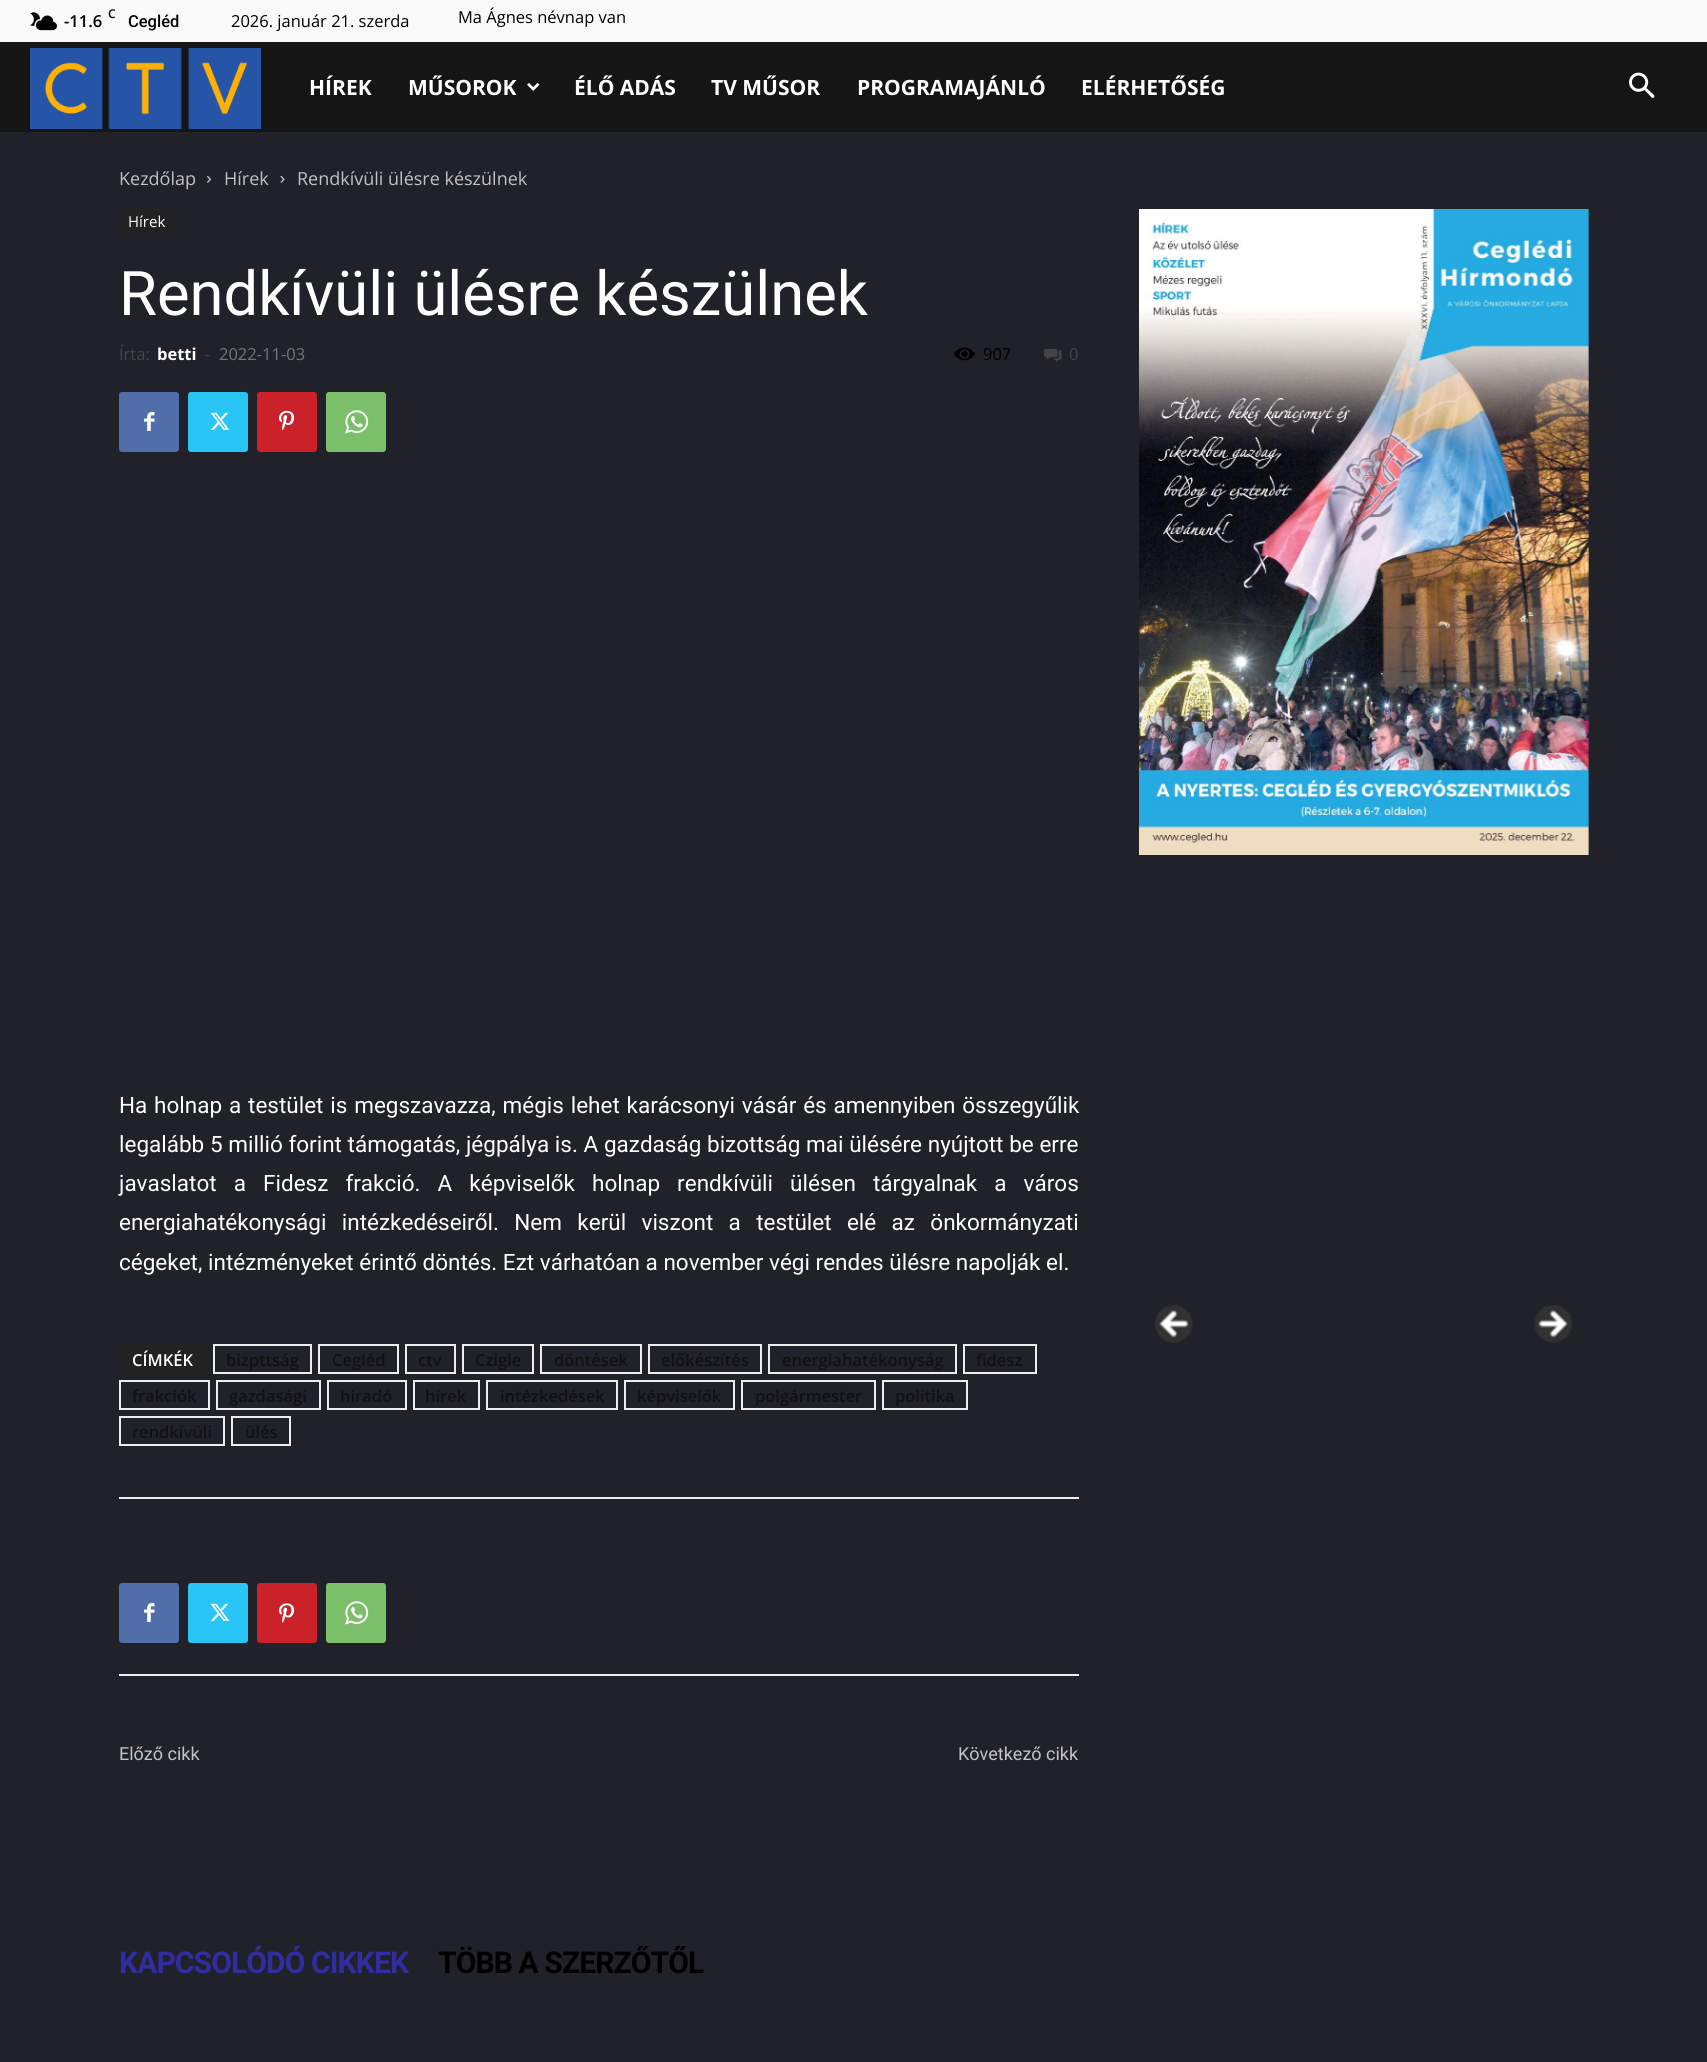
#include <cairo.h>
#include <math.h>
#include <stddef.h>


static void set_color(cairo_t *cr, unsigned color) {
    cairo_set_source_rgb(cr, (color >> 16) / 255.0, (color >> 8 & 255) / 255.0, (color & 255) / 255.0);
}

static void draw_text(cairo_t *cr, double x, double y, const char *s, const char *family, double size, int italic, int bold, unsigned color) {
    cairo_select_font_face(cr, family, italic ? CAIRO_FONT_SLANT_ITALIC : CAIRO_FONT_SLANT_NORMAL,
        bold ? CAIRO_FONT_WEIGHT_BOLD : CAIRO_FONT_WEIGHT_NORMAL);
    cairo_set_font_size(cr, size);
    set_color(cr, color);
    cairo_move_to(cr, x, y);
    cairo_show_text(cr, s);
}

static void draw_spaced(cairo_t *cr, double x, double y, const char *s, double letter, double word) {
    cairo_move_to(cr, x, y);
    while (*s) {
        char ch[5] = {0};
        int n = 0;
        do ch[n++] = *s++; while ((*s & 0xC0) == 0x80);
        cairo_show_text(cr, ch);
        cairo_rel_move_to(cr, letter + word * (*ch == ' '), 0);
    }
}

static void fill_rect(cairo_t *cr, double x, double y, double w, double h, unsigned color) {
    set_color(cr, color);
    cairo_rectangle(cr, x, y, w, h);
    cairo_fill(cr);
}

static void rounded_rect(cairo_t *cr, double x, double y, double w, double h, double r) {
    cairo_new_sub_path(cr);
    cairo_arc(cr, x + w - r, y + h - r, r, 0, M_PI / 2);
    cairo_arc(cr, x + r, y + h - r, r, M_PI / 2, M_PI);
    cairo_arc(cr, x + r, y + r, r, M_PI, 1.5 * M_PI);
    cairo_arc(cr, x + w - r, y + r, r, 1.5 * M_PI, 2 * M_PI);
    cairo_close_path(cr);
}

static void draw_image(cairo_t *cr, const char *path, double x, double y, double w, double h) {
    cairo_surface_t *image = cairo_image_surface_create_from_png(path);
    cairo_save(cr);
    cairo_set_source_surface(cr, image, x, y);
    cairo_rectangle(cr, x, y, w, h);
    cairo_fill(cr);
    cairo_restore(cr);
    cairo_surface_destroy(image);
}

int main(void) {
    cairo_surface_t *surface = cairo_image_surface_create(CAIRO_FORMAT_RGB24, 1707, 2062);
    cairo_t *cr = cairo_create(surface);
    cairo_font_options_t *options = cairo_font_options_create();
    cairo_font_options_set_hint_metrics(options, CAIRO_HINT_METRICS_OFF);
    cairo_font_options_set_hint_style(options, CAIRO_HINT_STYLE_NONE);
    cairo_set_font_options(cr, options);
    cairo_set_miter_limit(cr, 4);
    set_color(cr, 0x202129);
    cairo_paint(cr);
    fill_rect(cr, 0, 0, 1707, 42, 0xF9F9F9);
    draw_image(cr, "assets/img1.png", 30, 12, 27, 19);
    draw_text(cr, 108, 18, "C", "Open Sans SemiBold", 12, 0, 0, 0x000000);
    draw_text(cr, 64, 27, "-11.6", "Open Sans SemiBold", 16.5, 0, 0, 0x000000);
    draw_text(cr, 128, 27, "Cegléd", "Roboto Medium", 16.5, 0, 0, 0x000000);
    draw_text(cr, 231, 27, "2026. január 21. szerda", "Open Sans", 16.5, 0, 0, 0x000000);
    draw_text(cr, 458, 23, "Ma Ágnes névnap van", "Open Sans", 16.5, 0, 0, 0x000000);
    fill_rect(cr, 0, 42, 1707, 90, 0x151515);
    draw_image(cr, "assets/img2.png", 30, 48, 231, 81);
    draw_text(cr, 309, 95, "HÍREK", "Open Sans", 21, 0, 1, 0xFFFFFF);
    draw_text(cr, 408, 95, "MŰSOROK", "Open Sans", 21, 0, 1, 0xFFFFFF);
    draw_image(cr, "assets/img3.png", 527, 83, 13, 8);
    draw_text(cr, 574, 95, "ÉLŐ ADÁS", "Open Sans", 21, 0, 1, 0xFFFFFF);
    draw_text(cr, 711, 95, "TV MŰSOR", "Open Sans", 21, 0, 1, 0xFFFFFF);
    draw_text(cr, 857, 95, "PROGRAMAJÁNLÓ", "Open Sans", 21, 0, 1, 0xFFFFFF);
    draw_text(cr, 1081, 95, "ELÉRHETŐSÉG", "Open Sans", 21, 0, 1, 0xFFFFFF);
    draw_image(cr, "assets/img4.png", 1629, 72, 26, 26);
    draw_text(cr, 119, 185, "Kezdőlap", "Open Sans", 18, 0, 0, 0xC3C3C3);
    draw_image(cr, "assets/img5.png", 207, 175, 4, 8);
    draw_text(cr, 224, 185, "Hírek", "Open Sans", 18, 0, 0, 0xC3C3C3);
    draw_image(cr, "assets/img6.png", 280, 175, 5, 8);
    draw_text(cr, 297, 185, "Rendkívüli ülésre készülnek", "Open Sans", 18, 0, 0, 0xC3C3C3);
    fill_rect(cr, 119, 209, 55, 25, 0x222222);
    draw_text(cr, 128, 227, "Hírek", "Open Sans", 15, 0, 0, 0xFFFFFF);
    draw_text(cr, 119, 315, "Rendkívüli ülésre készülnek", "Roboto", 61.5, 0, 0, 0xFFFFFF);
    draw_text(cr, 119, 360, "Írta:", "Open Sans", 16.5, 0, 0, 0x444444);
    draw_text(cr, 157, 360, "betti", "Open Sans", 16.5, 0, 1, 0xFFFFFF);
    draw_text(cr, 205, 360, "-", "Open Sans", 16.5, 0, 0, 0x444444);
    draw_text(cr, 219, 360, "2022-11-03", "Open Sans", 16.5, 0, 0, 0x767676);
    draw_image(cr, "assets/img7.png", 954, 347, 21, 14);
    draw_text(cr, 983, 360, "907", "Open Sans", 16.5, 0, 0, 0x000000);
    draw_image(cr, "assets/img8.png", 1044, 349, 18, 13);
    draw_text(cr, 1069, 360, "0", "Open Sans", 16.5, 0, 0, 0x444444);
    set_color(cr, 0x516EAB);
    rounded_rect(cr, 119, 392, 60, 60, 3);
    cairo_fill(cr);
    draw_image(cr, "assets/img9.png", 144, 412, 11, 19);
    set_color(cr, 0x29C5F6);
    rounded_rect(cr, 188, 392, 60, 60, 3);
    cairo_fill(cr);
    draw_image(cr, "assets/img10.png", 210, 412, 20, 18);
    set_color(cr, 0xCA212A);
    rounded_rect(cr, 257, 392, 60, 60, 3);
    cairo_fill(cr);
    draw_image(cr, "assets/img11.png", 279, 410, 16, 21);
    set_color(cr, 0x7BBF6A);
    rounded_rect(cr, 326, 392, 60, 60, 3);
    cairo_fill(cr);
    draw_image(cr, "assets/img12.png", 345, 410, 24, 24);
    cairo_select_font_face(cr, "Roboto", CAIRO_FONT_SLANT_NORMAL, CAIRO_FONT_WEIGHT_NORMAL);
    cairo_set_font_size(cr, 22.5);
    set_color(cr, 0xFFFFFF);
    draw_spaced(cr, 119, 1113, "Ha holnap a testület is megszavazza, mégis lehet karácsonyi vásár és amennyiben összegyűlik", 0, 1.25);
    draw_spaced(cr, 119, 1152, "legalább 5 millió forint támogatás, jégpálya is. A gazdaság bizottság mai ülésére nyújtott be erre", 0, 0.1);
    draw_spaced(cr, 119, 1191, "javaslatot a Fidesz frakció. A képviselők holnap rendkívüli ülésen tárgyalnak a város", 0, 11.5);
    draw_spaced(cr, 119, 1230, "energiahatékonysági intézkedéseiről. Nem kerül viszont a testület elé az önkormányzati", 0, 9.75);
    draw_text(cr, 119, 1270, "cégeket, intézményeket érintő döntés. Ezt várhatóan a november végi rendes ülésre napolják el.", "Roboto", 22.5, 0, 0, 0xFFFFFF);
    fill_rect(cr, 119, 1344, 88, 30, 0x222222);
    draw_text(cr, 132, 1366, "CÍMKÉK", "Open Sans SemiBold", 16.5, 0, 0, 0xFFFFFF);
    cairo_rectangle(cr, 214, 1345, 97, 28);
    set_color(cr, 0xEDEDED);
    cairo_stroke(cr);
    draw_text(cr, 226, 1366, "bizpttság", "Open Sans SemiBold", 16.5, 0, 0, 0x111111);
    cairo_rectangle(cr, 319, 1345, 79, 28);
    set_color(cr, 0xEDEDED);
    cairo_stroke(cr);
    draw_text(cr, 332, 1366, "Cegléd", "Open Sans SemiBold", 16.5, 0, 0, 0x111111);
    cairo_rectangle(cr, 406, 1345, 49, 28);
    set_color(cr, 0xEDEDED);
    cairo_stroke(cr);
    draw_text(cr, 418, 1366, "ctv", "Open Sans SemiBold", 16.5, 0, 0, 0x111111);
    cairo_rectangle(cr, 463, 1345, 70, 28);
    set_color(cr, 0xEDEDED);
    cairo_stroke(cr);
    draw_text(cr, 475, 1366, "Czigle", "Open Sans SemiBold", 16.5, 0, 0, 0x111111);
    cairo_rectangle(cr, 541, 1345, 100, 28);
    set_color(cr, 0xEDEDED);
    cairo_stroke(cr);
    draw_text(cr, 554, 1366, "döntések", "Open Sans SemiBold", 16.5, 0, 0, 0x111111);
    cairo_rectangle(cr, 649, 1345, 112, 28);
    set_color(cr, 0xEDEDED);
    cairo_stroke(cr);
    draw_text(cr, 661, 1366, "előkészítés", "Open Sans SemiBold", 16.5, 0, 0, 0x111111);
    cairo_rectangle(cr, 769, 1345, 187, 28);
    set_color(cr, 0xEDEDED);
    cairo_stroke(cr);
    draw_text(cr, 782, 1366, "energiahatékonyság", "Open Sans SemiBold", 16.5, 0, 0, 0x111111);
    cairo_rectangle(cr, 964, 1345, 72, 28);
    set_color(cr, 0xEDEDED);
    cairo_stroke(cr);
    draw_text(cr, 976, 1366, "fidesz", "Open Sans SemiBold", 16.5, 0, 0, 0x111111);
    cairo_rectangle(cr, 120, 1381, 89, 28);
    set_color(cr, 0xEDEDED);
    cairo_stroke(cr);
    draw_text(cr, 132, 1402, "frakciók", "Open Sans SemiBold", 16.5, 0, 0, 0x111111);
    cairo_rectangle(cr, 217, 1381, 103, 28);
    set_color(cr, 0xEDEDED);
    cairo_stroke(cr);
    draw_text(cr, 229, 1402, "gazdasági", "Open Sans SemiBold", 16.5, 0, 0, 0x111111);
    cairo_rectangle(cr, 328, 1381, 78, 28);
    set_color(cr, 0xEDEDED);
    cairo_stroke(cr);
    draw_text(cr, 340, 1402, "híradó", "Open Sans SemiBold", 16.5, 0, 0, 0x111111);
    cairo_rectangle(cr, 414, 1381, 65, 28);
    set_color(cr, 0xEDEDED);
    cairo_stroke(cr);
    draw_text(cr, 425, 1402, "hírek", "Open Sans SemiBold", 16.5, 0, 0, 0x111111);
    cairo_rectangle(cr, 487, 1381, 130, 28);
    set_color(cr, 0xEDEDED);
    cairo_stroke(cr);
    draw_text(cr, 500, 1402, "intézkedések", "Open Sans SemiBold", 16.5, 0, 0, 0x111111);
    cairo_rectangle(cr, 625, 1381, 109, 28);
    set_color(cr, 0xEDEDED);
    cairo_stroke(cr);
    draw_text(cr, 637, 1402, "képviselők", "Open Sans SemiBold", 16.5, 0, 0, 0x111111);
    cairo_rectangle(cr, 742, 1381, 133, 28);
    set_color(cr, 0xEDEDED);
    cairo_stroke(cr);
    draw_text(cr, 755, 1402, "polgármester", "Open Sans SemiBold", 16.5, 0, 0, 0x111111);
    cairo_rectangle(cr, 883, 1381, 84, 28);
    set_color(cr, 0xEDEDED);
    cairo_stroke(cr);
    draw_text(cr, 895, 1402, "politika", "Open Sans SemiBold", 16.5, 0, 0, 0x111111);
    cairo_rectangle(cr, 120, 1417, 104, 28);
    set_color(cr, 0xEDEDED);
    cairo_stroke(cr);
    draw_text(cr, 132, 1438, "rendkívüli", "Open Sans SemiBold", 16.5, 0, 0, 0x111111);
    cairo_rectangle(cr, 232, 1417, 58, 28);
    set_color(cr, 0xEDEDED);
    cairo_stroke(cr);
    draw_text(cr, 245, 1438, "ülés", "Open Sans SemiBold", 16.5, 0, 0, 0x111111);
    fill_rect(cr, 119, 1497, 960, 2, 0xEDEDED);
    fill_rect(cr, 119, 1674, 960, 2, 0xEDEDED);
    set_color(cr, 0x516EAB);
    rounded_rect(cr, 119, 1583, 60, 60, 3);
    cairo_fill(cr);
    draw_image(cr, "assets/img9.png", 144, 1603, 11, 19);
    set_color(cr, 0x29C5F6);
    rounded_rect(cr, 188, 1583, 60, 60, 3);
    cairo_fill(cr);
    draw_image(cr, "assets/img10.png", 210, 1603, 20, 18);
    set_color(cr, 0xCA212A);
    rounded_rect(cr, 257, 1583, 60, 60, 3);
    cairo_fill(cr);
    draw_image(cr, "assets/img13.png", 279, 1603, 16, 20);
    set_color(cr, 0x7BBF6A);
    rounded_rect(cr, 326, 1583, 60, 60, 3);
    cairo_fill(cr);
    draw_image(cr, "assets/img12.png", 345, 1601, 24, 24);
    draw_text(cr, 119, 1760, "Előző cikk", "Roboto", 18, 0, 0, 0xC3C3C3);
    draw_text(cr, 958, 1760, "Következő cikk", "Roboto", 18, 0, 0, 0xC3C3C3);
    cairo_select_font_face(cr, "Roboto", CAIRO_FONT_SLANT_NORMAL, CAIRO_FONT_WEIGHT_BOLD);
    cairo_set_font_size(cr, 30);
    set_color(cr, 0x312DA1);
    draw_spaced(cr, 119, 1973, "KAPCSOLÓDÓ CIKKEK", -0.9, 0);
    set_color(cr, 0x000000);
    draw_spaced(cr, 438, 1973, "TÖBB A SZERZŐTŐL", -0.9, 0);
    draw_image(cr, "assets/img14.png", 1139, 209, 450, 646);
    draw_image(cr, "assets/img15.png", 1154, 1304, 39, 39);
    draw_image(cr, "assets/img16.png", 1534, 1304, 39, 39);
    cairo_surface_write_to_png(surface, "output.png");
    cairo_font_options_destroy(options);
    cairo_destroy(cr);
    cairo_surface_destroy(surface);
    return 0;
}
